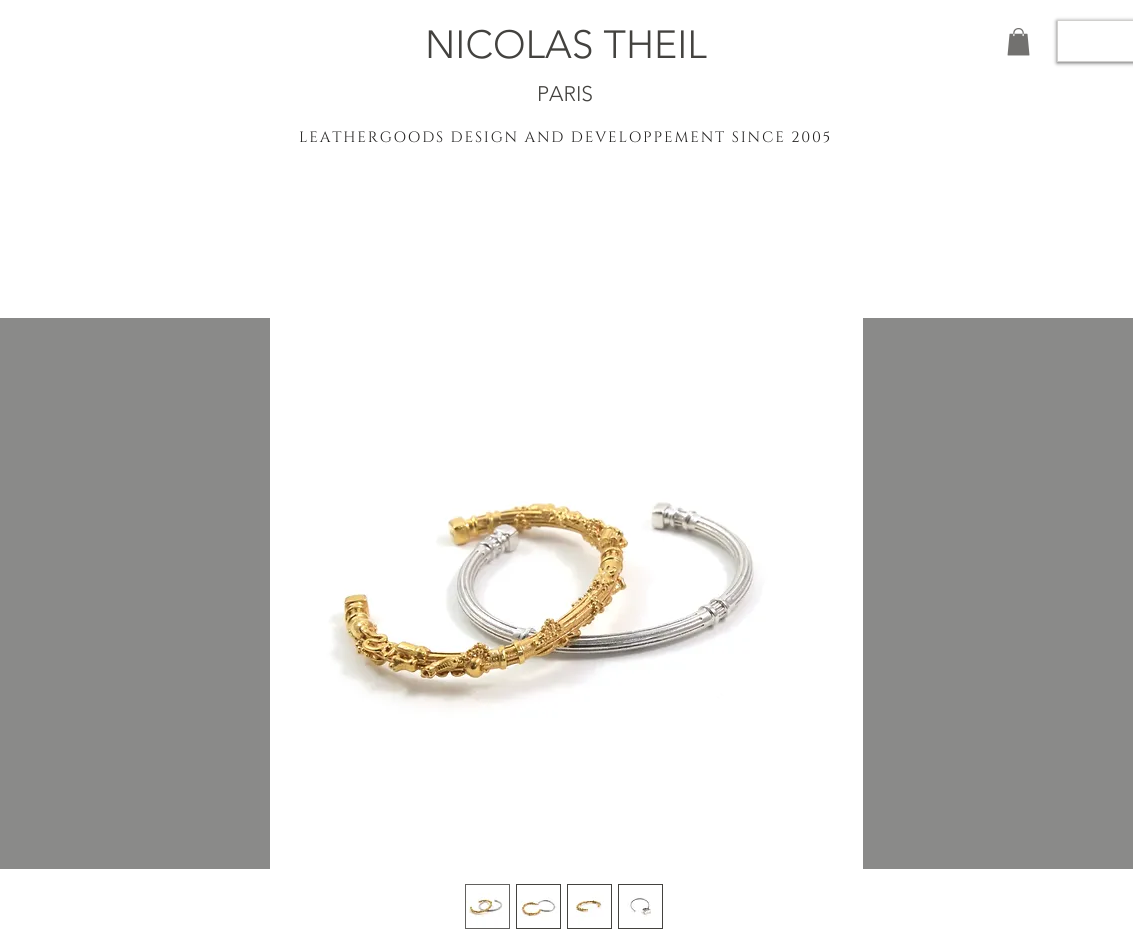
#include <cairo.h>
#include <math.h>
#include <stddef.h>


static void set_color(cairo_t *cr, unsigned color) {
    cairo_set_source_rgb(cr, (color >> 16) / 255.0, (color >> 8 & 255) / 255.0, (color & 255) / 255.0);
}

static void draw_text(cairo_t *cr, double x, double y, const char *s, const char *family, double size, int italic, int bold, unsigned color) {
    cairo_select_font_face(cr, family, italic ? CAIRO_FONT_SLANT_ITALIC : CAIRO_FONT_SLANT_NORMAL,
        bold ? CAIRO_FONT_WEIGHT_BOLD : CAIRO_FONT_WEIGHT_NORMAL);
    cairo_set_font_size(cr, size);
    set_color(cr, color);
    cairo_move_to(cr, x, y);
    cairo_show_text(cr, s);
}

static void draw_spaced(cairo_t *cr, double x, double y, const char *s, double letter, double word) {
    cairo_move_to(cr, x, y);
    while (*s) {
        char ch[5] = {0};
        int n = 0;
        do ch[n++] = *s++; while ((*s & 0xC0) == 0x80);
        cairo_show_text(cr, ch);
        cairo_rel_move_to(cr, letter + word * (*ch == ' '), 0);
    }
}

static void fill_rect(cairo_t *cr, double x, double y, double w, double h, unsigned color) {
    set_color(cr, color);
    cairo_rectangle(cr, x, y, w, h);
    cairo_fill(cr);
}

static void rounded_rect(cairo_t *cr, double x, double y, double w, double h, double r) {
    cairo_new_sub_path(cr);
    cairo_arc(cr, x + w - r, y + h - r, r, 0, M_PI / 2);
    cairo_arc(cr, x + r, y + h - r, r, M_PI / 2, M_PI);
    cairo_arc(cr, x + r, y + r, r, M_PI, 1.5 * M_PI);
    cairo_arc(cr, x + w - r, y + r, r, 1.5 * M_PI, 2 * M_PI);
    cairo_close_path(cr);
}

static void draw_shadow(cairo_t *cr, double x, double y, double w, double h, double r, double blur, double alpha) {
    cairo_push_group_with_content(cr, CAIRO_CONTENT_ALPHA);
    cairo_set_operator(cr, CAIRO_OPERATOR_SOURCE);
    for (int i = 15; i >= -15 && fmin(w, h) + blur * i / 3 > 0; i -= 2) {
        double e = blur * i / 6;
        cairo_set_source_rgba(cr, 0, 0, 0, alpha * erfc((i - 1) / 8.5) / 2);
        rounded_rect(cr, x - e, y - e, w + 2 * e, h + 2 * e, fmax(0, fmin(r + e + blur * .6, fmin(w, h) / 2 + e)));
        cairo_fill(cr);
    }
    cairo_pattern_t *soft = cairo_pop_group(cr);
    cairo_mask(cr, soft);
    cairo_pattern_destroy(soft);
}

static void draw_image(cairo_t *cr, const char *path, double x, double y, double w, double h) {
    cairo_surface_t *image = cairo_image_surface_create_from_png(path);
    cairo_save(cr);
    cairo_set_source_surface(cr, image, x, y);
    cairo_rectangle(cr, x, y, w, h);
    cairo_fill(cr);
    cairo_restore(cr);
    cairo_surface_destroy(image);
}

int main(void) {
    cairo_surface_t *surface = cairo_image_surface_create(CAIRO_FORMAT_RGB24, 1133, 951);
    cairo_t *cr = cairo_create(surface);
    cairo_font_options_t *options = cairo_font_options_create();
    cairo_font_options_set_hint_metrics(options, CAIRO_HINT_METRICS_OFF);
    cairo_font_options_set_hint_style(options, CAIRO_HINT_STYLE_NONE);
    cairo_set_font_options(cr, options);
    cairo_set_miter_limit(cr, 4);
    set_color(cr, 0xFFFFFF);
    cairo_paint(cr);
    draw_text(cr, 425, 58, "NICOLAS THEIL", "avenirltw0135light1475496 Light", 39, 0, 0, 0x43423F);
    draw_image(cr, "assets/img1.png", 1007, 28, 23, 28);
    cairo_save(cr);
    cairo_set_fill_rule(cr, CAIRO_FILL_RULE_EVEN_ODD);
    cairo_new_path(cr);
    cairo_move_to(cr, 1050, 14);
    cairo_line_to(cr, 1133, 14);
    cairo_line_to(cr, 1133, 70);
    cairo_line_to(cr, 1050, 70);
    cairo_close_path(cr);
    cairo_move_to(cr, 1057, 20);
    cairo_line_to(cr, 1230, 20);
    cairo_line_to(cr, 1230, 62);
    cairo_line_to(cr, 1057, 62);
    cairo_close_path(cr);
    cairo_clip(cr);
    set_color(cr, 0x000000);
    draw_shadow(cr, 1057, 21, 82, 42, 0, 2, 0.6);
    cairo_restore(cr);
    cairo_rectangle(cr, 1057.5, 20.5, 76, 41);
    set_color(cr, 0xD0CFCD);
    cairo_set_line_width(cr, 1);
    cairo_stroke(cr);
    draw_text(cr, 537, 101, "PARIS", "avenirltw0135light1475496 Light", 21, 0, 0, 0x43423F);
    cairo_select_font_face(cr, "Cinzel", CAIRO_FONT_SLANT_NORMAL, CAIRO_FONT_WEIGHT_NORMAL);
    cairo_set_font_size(cr, 15);
    set_color(cr, 0x222120);
    draw_spaced(cr, 299, 142, "LEATHERGOODS DESIGN AND DEVELOPPEMENT SINCE 2005", 1.8, 0);
    fill_rect(cr, 0, 318, 1133, 551, 0x8A8A89);
    draw_image(cr, "assets/img2.png", 270, 318, 593, 551);
    cairo_rectangle(cr, 465.5, 884.5, 44, 44);
    set_color(cr, 0x62615F);
    cairo_stroke(cr);
    draw_image(cr, "assets/img3.png", 466, 885, 43, 43);
    fill_rect(cr, 516, 884, 45, 45, 0x43423F);
    draw_image(cr, "assets/img4.png", 517, 885, 43, 43);
    fill_rect(cr, 567, 884, 45, 45, 0x43423F);
    draw_image(cr, "assets/img5.png", 568, 885, 43, 43);
    fill_rect(cr, 618, 884, 45, 45, 0x43423F);
    draw_image(cr, "assets/img6.png", 619, 885, 43, 43);
    cairo_surface_write_to_png(surface, "output.png");
    cairo_font_options_destroy(options);
    cairo_destroy(cr);
    cairo_surface_destroy(surface);
    return 0;
}
